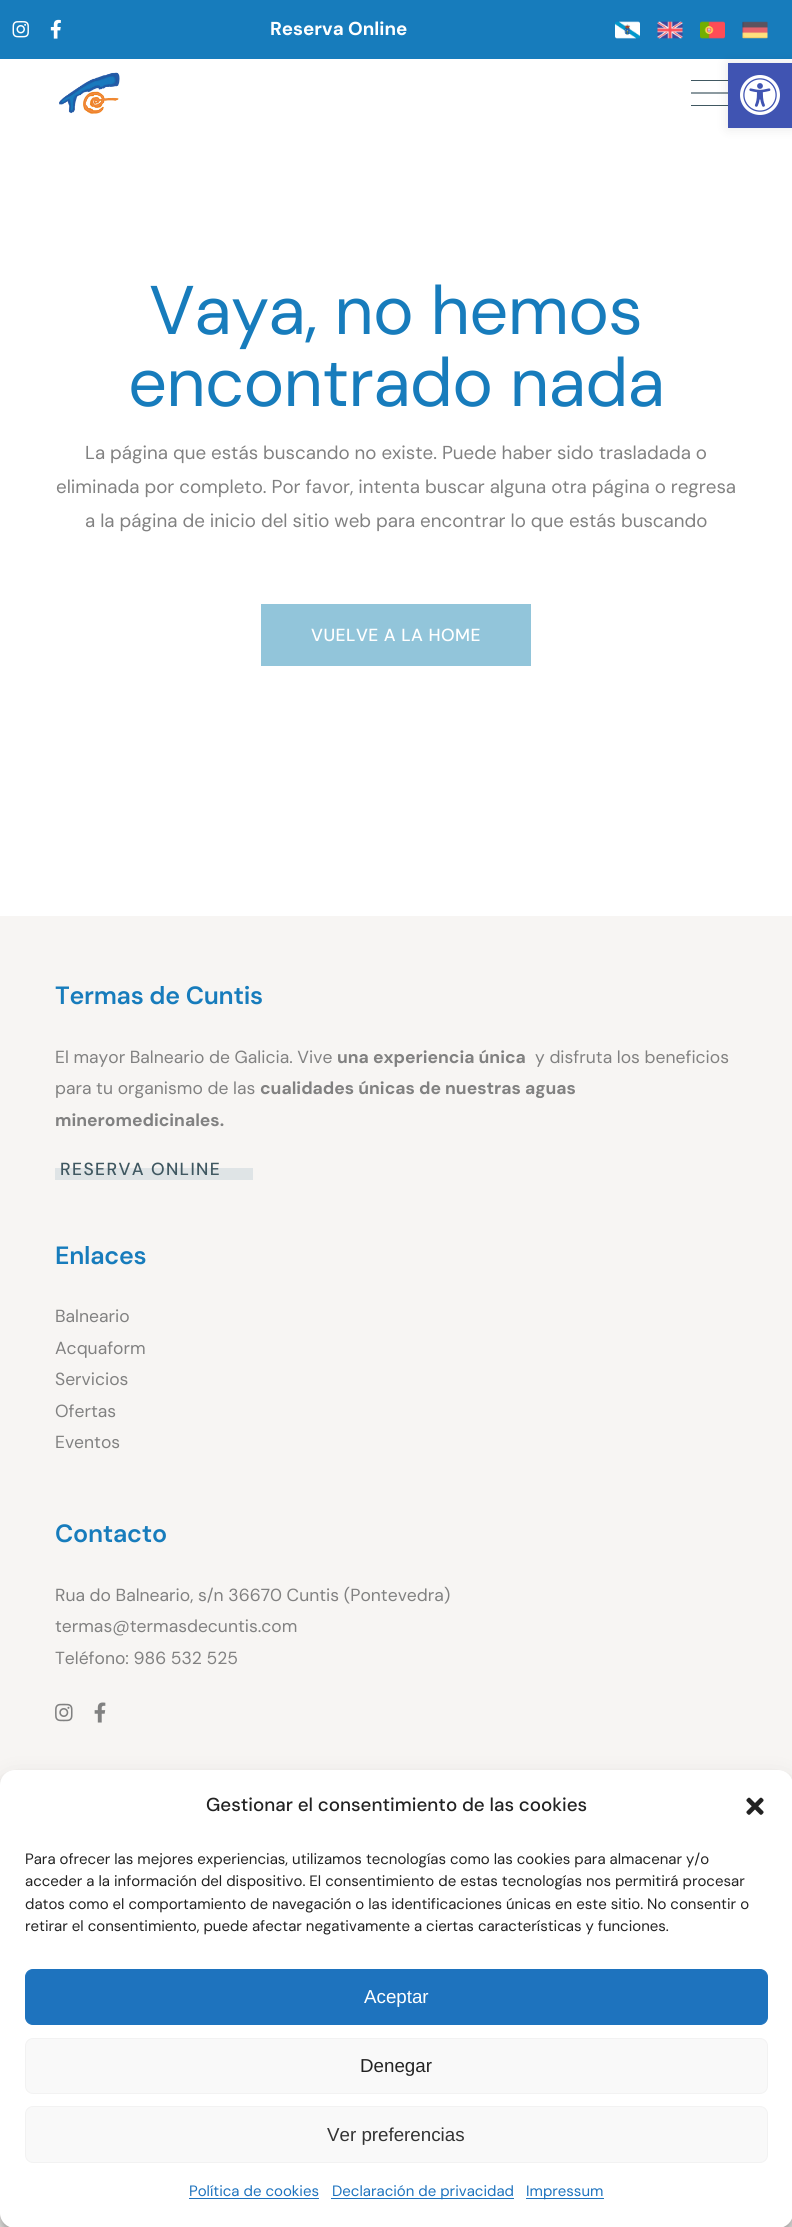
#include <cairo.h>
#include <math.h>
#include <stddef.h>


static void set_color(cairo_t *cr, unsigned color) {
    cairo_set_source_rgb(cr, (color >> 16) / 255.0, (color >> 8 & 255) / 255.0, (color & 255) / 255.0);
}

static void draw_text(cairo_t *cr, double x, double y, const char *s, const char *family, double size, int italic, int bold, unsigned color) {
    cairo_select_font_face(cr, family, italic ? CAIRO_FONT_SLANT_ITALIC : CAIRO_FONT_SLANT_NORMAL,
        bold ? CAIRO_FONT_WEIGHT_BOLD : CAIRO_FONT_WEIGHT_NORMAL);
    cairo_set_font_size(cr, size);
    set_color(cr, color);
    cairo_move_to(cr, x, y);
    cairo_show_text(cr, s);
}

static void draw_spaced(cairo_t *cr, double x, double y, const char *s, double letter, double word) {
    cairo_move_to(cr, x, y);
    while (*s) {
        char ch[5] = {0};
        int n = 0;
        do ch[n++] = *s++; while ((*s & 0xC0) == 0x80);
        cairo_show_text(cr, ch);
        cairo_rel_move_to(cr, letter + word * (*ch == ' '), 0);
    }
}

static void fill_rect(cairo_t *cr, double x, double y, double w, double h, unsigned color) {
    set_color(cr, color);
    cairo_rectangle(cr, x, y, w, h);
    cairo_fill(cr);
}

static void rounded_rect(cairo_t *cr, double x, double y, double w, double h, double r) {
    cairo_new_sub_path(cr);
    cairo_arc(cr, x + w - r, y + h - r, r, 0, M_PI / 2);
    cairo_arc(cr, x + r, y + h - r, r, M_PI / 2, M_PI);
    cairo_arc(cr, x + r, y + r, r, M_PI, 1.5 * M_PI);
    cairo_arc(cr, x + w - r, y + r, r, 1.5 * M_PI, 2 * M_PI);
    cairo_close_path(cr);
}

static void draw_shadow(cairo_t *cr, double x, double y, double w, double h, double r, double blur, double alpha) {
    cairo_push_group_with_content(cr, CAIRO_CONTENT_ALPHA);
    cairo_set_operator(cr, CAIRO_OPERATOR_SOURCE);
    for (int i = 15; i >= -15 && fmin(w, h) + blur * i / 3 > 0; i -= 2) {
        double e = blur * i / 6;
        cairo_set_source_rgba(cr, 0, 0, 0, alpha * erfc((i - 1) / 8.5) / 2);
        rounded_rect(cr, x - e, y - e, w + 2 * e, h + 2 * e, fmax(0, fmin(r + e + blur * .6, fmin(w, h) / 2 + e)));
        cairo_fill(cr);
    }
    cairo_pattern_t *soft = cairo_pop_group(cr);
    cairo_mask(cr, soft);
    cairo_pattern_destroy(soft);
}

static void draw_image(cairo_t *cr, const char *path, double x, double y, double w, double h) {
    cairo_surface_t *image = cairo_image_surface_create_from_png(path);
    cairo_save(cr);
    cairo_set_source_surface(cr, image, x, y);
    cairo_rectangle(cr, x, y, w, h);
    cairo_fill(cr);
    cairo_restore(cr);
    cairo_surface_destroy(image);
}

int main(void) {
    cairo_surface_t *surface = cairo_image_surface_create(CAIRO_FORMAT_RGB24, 792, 2227);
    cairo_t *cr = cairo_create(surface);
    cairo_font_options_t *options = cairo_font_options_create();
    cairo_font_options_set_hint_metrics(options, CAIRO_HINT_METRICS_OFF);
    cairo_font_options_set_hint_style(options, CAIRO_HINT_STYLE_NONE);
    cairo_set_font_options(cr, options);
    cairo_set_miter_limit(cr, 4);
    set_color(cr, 0xFFFFFF);
    cairo_paint(cr);
    fill_rect(cr, 0, 0, 792, 59, 0x177CBC);
    draw_image(cr, "assets/img1.png", 12, 21, 17, 17);
    draw_image(cr, "assets/img2.png", 50, 19, 11, 20);
    draw_text(cr, 270, 35, "Reserva Online", "DM Sans", 18.75, 0, 1, 0xFFFFFF);
    draw_image(cr, "assets/img3.png", 615, 21, 25, 18);
    draw_image(cr, "assets/img4.png", 657, 21, 26, 18);
    draw_image(cr, "assets/img5.png", 700, 21, 25, 18);
    draw_image(cr, "assets/img6.png", 742, 21, 26, 18);
    draw_image(cr, "assets/img7.png", 59, 72, 61, 42);
    fill_rect(cr, 691, 80, 45, 1, 0x405861);
    cairo_new_path(cr);
    cairo_move_to(cr, 691, 93);
    cairo_line_to(cr, 736, 93);
    cairo_set_line_width(cr, 1.2);
    cairo_stroke(cr);
    fill_rect(cr, 691, 105, 45, 1, 0x405861);
    cairo_select_font_face(cr, "DM Sans", CAIRO_FONT_SLANT_NORMAL, CAIRO_FONT_WEIGHT_NORMAL);
    cairo_set_font_size(cr, 68.75);
    set_color(cr, 0x177CBC);
    draw_spaced(cr, 149, 334, "Vaya, no hemos", -0.75, 0);
    draw_spaced(cr, 128, 406, "encontrado nada", -0.75, 0);
    draw_text(cr, 85, 459, "La página que estás buscando no existe. Puede haber sido trasladada o", "DM Sans", 18.75, 0, 0, 0x818181);
    draw_text(cr, 56, 493, "eliminada por completo. Por favor, intenta buscar alguna otra página o regresa", "DM Sans", 18.75, 0, 0, 0x818181);
    draw_text(cr, 85, 527, "a la página de inicio del sitio web para encontrar lo que estás buscando", "DM Sans", 18.75, 0, 0, 0x818181);
    fill_rect(cr, 261, 604, 270, 62, 0x92C5DA);
    cairo_select_font_face(cr, "DM Sans Medium", CAIRO_FONT_SLANT_NORMAL, CAIRO_FONT_WEIGHT_NORMAL);
    cairo_set_font_size(cr, 17.5);
    set_color(cr, 0xFFFFFF);
    draw_spaced(cr, 311, 641, "VUELVE A LA HOME", 0.5, 0);
    fill_rect(cr, 0, 916, 792, 869, 0xF7F5F3);
    cairo_select_font_face(cr, "DM Sans SemiBold", CAIRO_FONT_SLANT_NORMAL, CAIRO_FONT_WEIGHT_NORMAL);
    cairo_set_font_size(cr, 25);
    set_color(cr, 0x177CBC);
    draw_spaced(cr, 55, 1004, "Termas de Cuntis", -0.25, 0);
    draw_text(cr, 55, 1063, "El mayor Balneario de Galicia. Vive", "DM Sans", 17.5, 0, 0, 0x818181);
    draw_text(cr, 337, 1063, "una experiencia única", "DM Sans", 17.5, 0, 1, 0x818181);
    draw_text(cr, 535, 1063, "y disfruta los beneficios", "DM Sans", 17.5, 0, 0, 0x818181);
    draw_text(cr, 55, 1094, "para tu organismo de las", "DM Sans", 17.5, 0, 0, 0x818181);
    draw_text(cr, 260, 1094, "cualidades únicas de nuestras aguas", "DM Sans", 17.5, 0, 1, 0x818181);
    draw_text(cr, 55, 1126, "mineromedicinales.", "DM Sans", 17.5, 0, 1, 0x818181);
    fill_rect(cr, 55, 1168, 198, 12, 0xDFE4E6);
    cairo_select_font_face(cr, "DM Sans Medium", CAIRO_FONT_SLANT_NORMAL, CAIRO_FONT_WEIGHT_NORMAL);
    set_color(cr, 0x405861);
    draw_spaced(cr, 60, 1175, "RESERVA ONLINE", 1.4, 0);
    cairo_select_font_face(cr, "DM Sans SemiBold", CAIRO_FONT_SLANT_NORMAL, CAIRO_FONT_WEIGHT_NORMAL);
    cairo_set_font_size(cr, 25);
    set_color(cr, 0x177CBC);
    draw_spaced(cr, 55, 1264, "Enlaces", -0.25, 0);
    draw_text(cr, 55, 1322, "Balneario", "DM Sans", 17.5, 0, 0, 0x818181);
    draw_text(cr, 55, 1354, "Acquaform", "DM Sans", 17.5, 0, 0, 0x818181);
    draw_text(cr, 55, 1385, "Servicios", "DM Sans", 17.5, 0, 0, 0x818181);
    draw_text(cr, 55, 1417, "Ofertas", "DM Sans", 17.5, 0, 0, 0x818181);
    draw_text(cr, 55, 1448, "Eventos", "DM Sans", 17.5, 0, 0, 0x818181);
    cairo_select_font_face(cr, "DM Sans SemiBold", CAIRO_FONT_SLANT_NORMAL, CAIRO_FONT_WEIGHT_NORMAL);
    cairo_set_font_size(cr, 25);
    set_color(cr, 0x177CBC);
    draw_spaced(cr, 55, 1542, "Contacto", -0.25, 0);
    draw_text(cr, 55, 1601, "Rua do Balneario, s/n 36670 Cuntis (Pontevedra)", "DM Sans", 17.5, 0, 0, 0x818181);
    draw_text(cr, 55, 1632, "termas@termasdecuntis.com", "DM Sans", 17.5, 0, 0, 0x818181);
    draw_text(cr, 55, 1664, "Teléfono: 986 532 525", "DM Sans", 17.5, 0, 0, 0x818181);
    draw_image(cr, "assets/img8.png", 55, 1703, 18, 19);
    draw_image(cr, "assets/img9.png", 94, 1702, 12, 21);
    fill_rect(cr, 0, 2213, 792, 14, 0xF7F5F3);
    set_color(cr, 0x000000);
    draw_shadow(cr, 728, 63, 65, 65, 0, 6, 0.1);
    fill_rect(cr, 728, 63, 64, 65, 0x4054B2);
    draw_image(cr, "assets/img10.png", 740, 75, 40, 40);
    set_color(cr, 0x000000);
    draw_shadow(cr, 0, 1778, 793, 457, 15, 4, 0.23);
    draw_shadow(cr, 0, 1783, 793, 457, 15, 12.5, 0.19);
    set_color(cr, 0xFFFFFF);
    rounded_rect(cr, 0, 1770, 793, 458, 15);
    cairo_fill(cr);
    draw_text(cr, 206, 1811, "Gestionar el consentimiento de las cookies", "DM Sans Medium", 18.75, 0, 0, 0x222222);
    draw_image(cr, "assets/img11.png", 746, 1797, 18, 18);
    draw_text(cr, 25, 1864, "Para ofrecer las mejores experiencias, utilizamos tecnologías como las cookies para almacenar y/o", "DM Sans", 15, 0, 0, 0x222222);
    draw_text(cr, 25, 1886, "acceder a la información del dispositivo. El consentimiento de estas tecnologías nos permitirá procesar", "DM Sans", 15, 0, 0, 0x222222);
    draw_text(cr, 25, 1909, "datos como el comportamiento de navegación o las identificaciones únicas en este sitio. No consentir o", "DM Sans", 15, 0, 0, 0x222222);
    draw_text(cr, 25, 1931, "retirar el consentimiento, puede afectar negativamente a ciertas características y funciones.", "DM Sans", 15, 0, 0, 0x222222);
    set_color(cr, 0x1E73BE);
    rounded_rect(cr, 25.5, 1969.5, 742, 55, 7.5);
    cairo_fill_preserve(cr);
    cairo_set_line_width(cr, 1);
    cairo_stroke(cr);
    draw_text(cr, 364, 2003, "Aceptar", "Liberation Sans", 18.75, 0, 0, 0xFFFFFF);
    set_color(cr, 0xF9F9F9);
    rounded_rect(cr, 25.5, 2038.5, 742, 55, 7.5);
    cairo_fill_preserve(cr);
    set_color(cr, 0xF2F2F2);
    cairo_stroke(cr);
    draw_text(cr, 360, 2072, "Denegar", "Liberation Sans", 18.75, 0, 0, 0x222222);
    set_color(cr, 0xF9F9F9);
    rounded_rect(cr, 25.5, 2106.5, 742, 56, 7.5);
    cairo_fill_preserve(cr);
    set_color(cr, 0xF2F2F2);
    cairo_stroke(cr);
    draw_text(cr, 327, 2141, "Ver preferencias", "Liberation Sans", 18.75, 0, 0, 0x333333);
    draw_text(cr, 189, 2196, "Política de cookies", "DM Sans", 15, 0, 0, 0x1E73BE);
    fill_rect(cr, 189, 2198, 130, 1, 0x1E73BE);
    fill_rect(cr, 331, 2198, 183, 1, 0x1E73BE);
    draw_text(cr, 332, 2196, "Declaración de privacidad", "DM Sans", 15, 0, 0, 0x1E73BE);
    fill_rect(cr, 526, 2198, 78, 1, 0x1E73BE);
    draw_text(cr, 526, 2196, "Impressum", "DM Sans", 15, 0, 0, 0x1E73BE);
    cairo_surface_write_to_png(surface, "output.png");
    cairo_font_options_destroy(options);
    cairo_destroy(cr);
    cairo_surface_destroy(surface);
    return 0;
}
